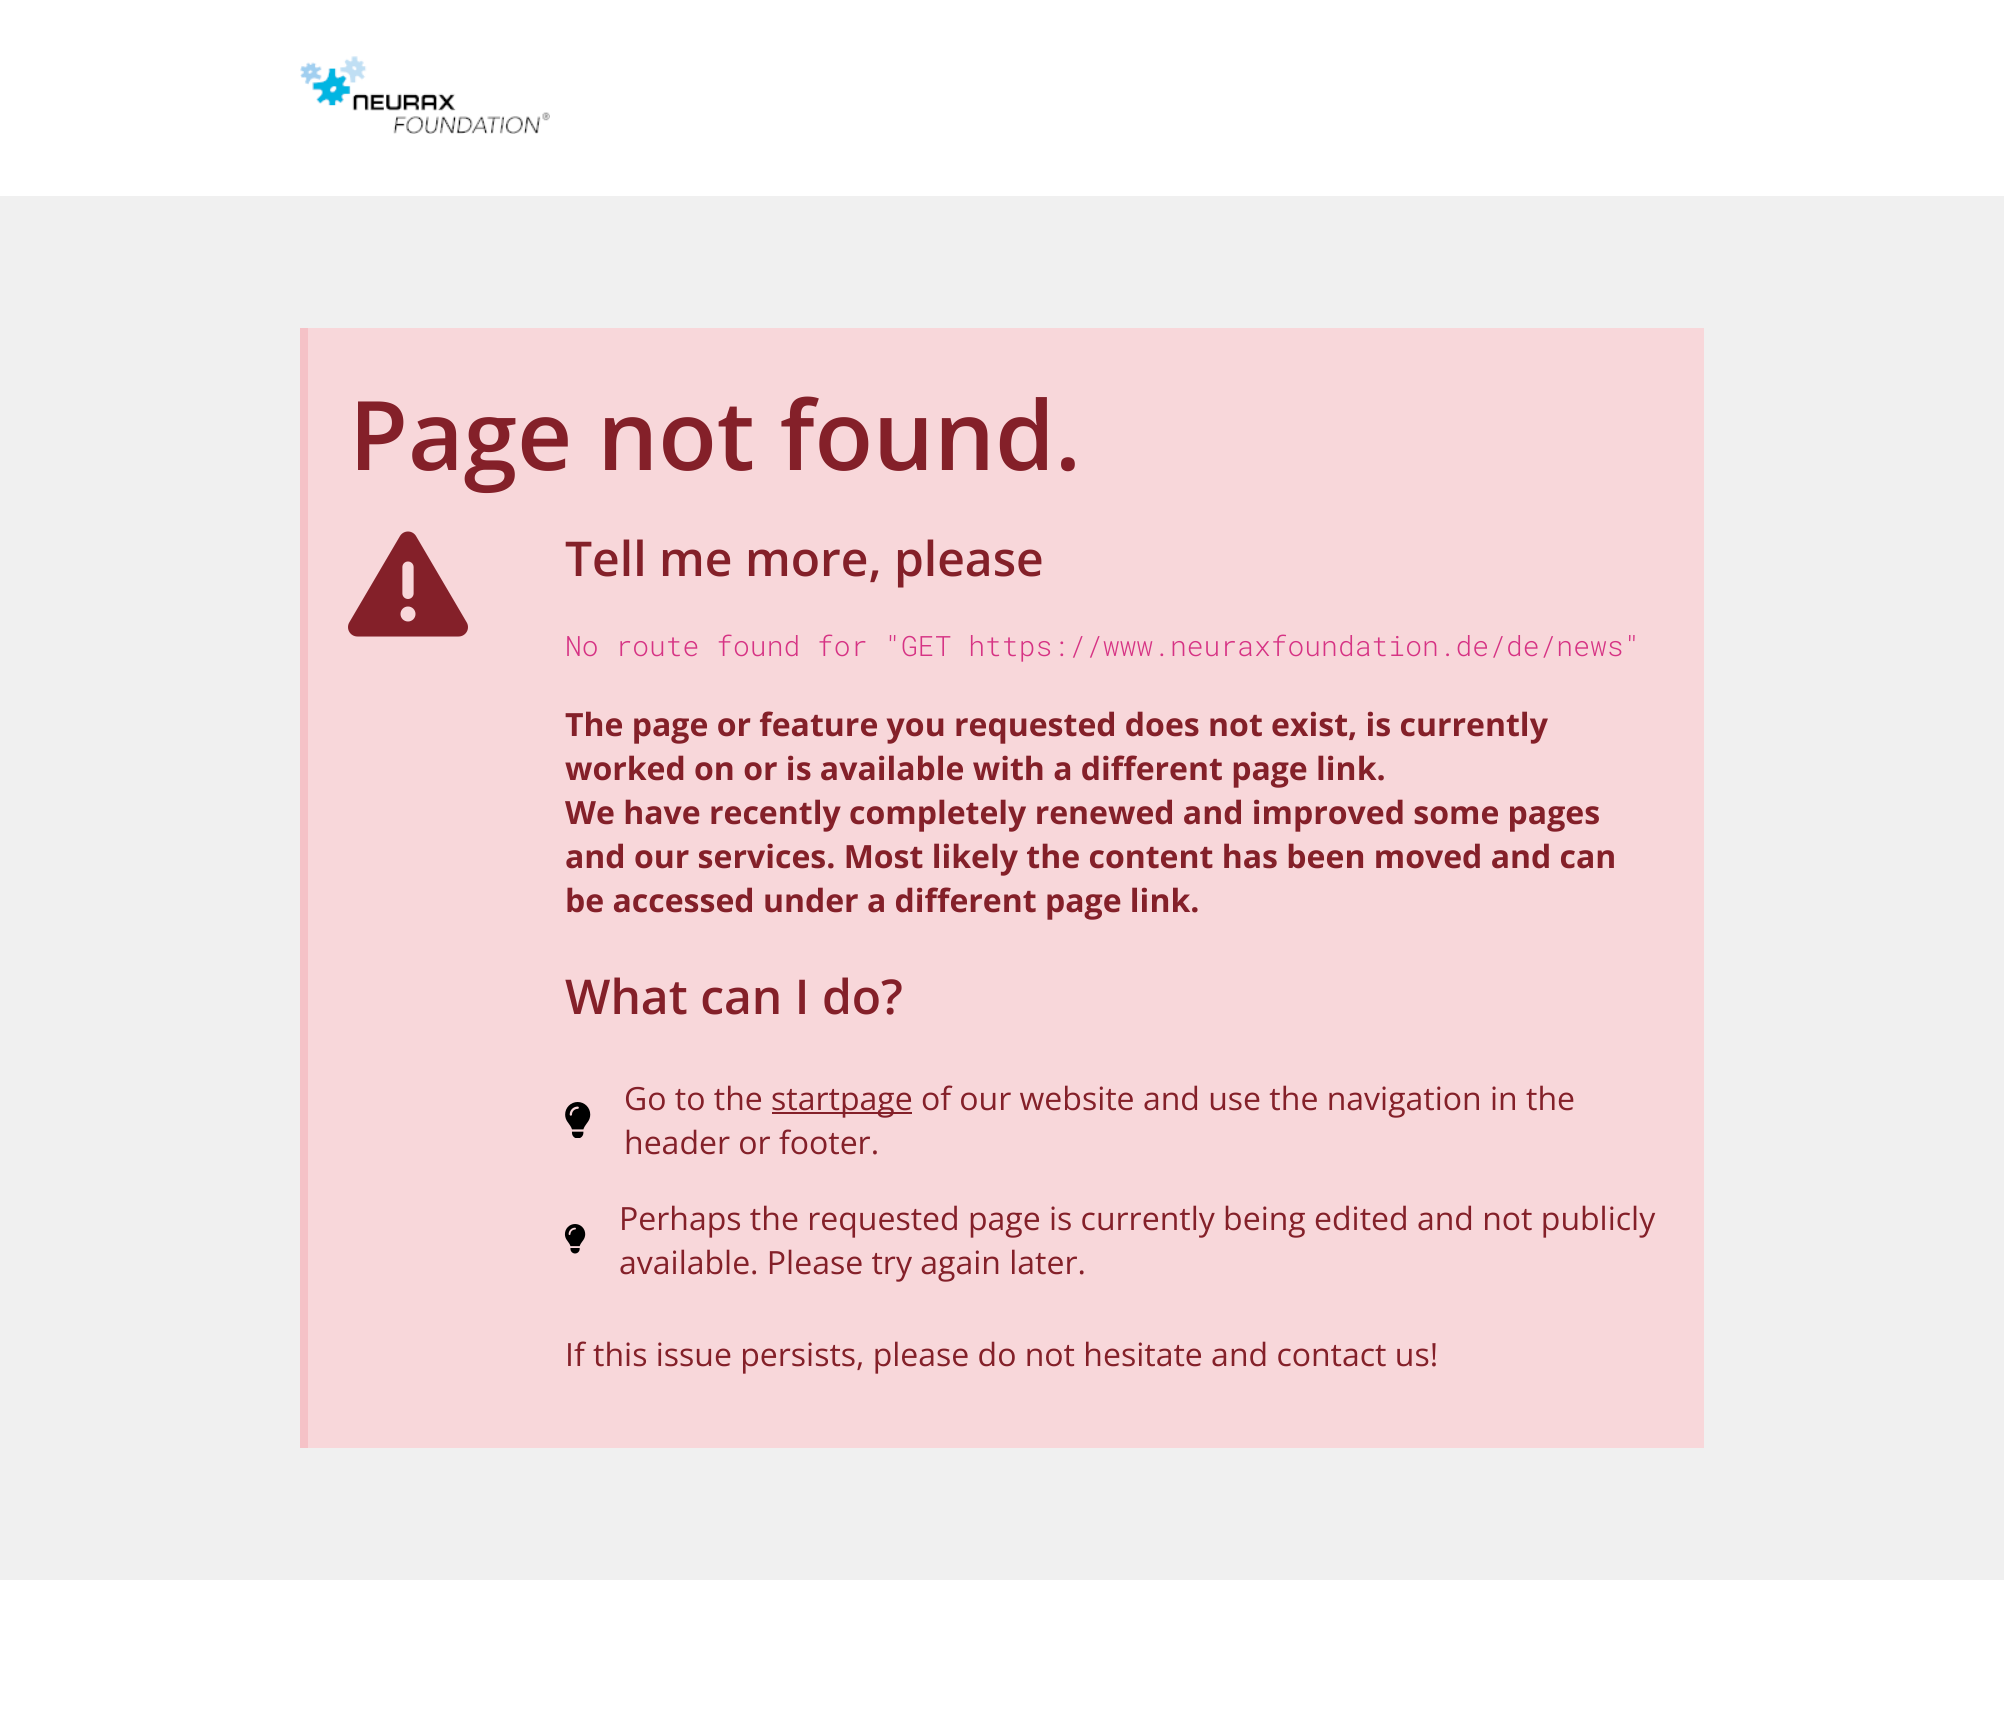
#include <cairo.h>
#include <math.h>
#include <stddef.h>


static void set_color(cairo_t *cr, unsigned color) {
    cairo_set_source_rgb(cr, (color >> 16) / 255.0, (color >> 8 & 255) / 255.0, (color & 255) / 255.0);
}

static void draw_text(cairo_t *cr, double x, double y, const char *s, const char *family, double size, int italic, int bold, unsigned color) {
    cairo_select_font_face(cr, family, italic ? CAIRO_FONT_SLANT_ITALIC : CAIRO_FONT_SLANT_NORMAL,
        bold ? CAIRO_FONT_WEIGHT_BOLD : CAIRO_FONT_WEIGHT_NORMAL);
    cairo_set_font_size(cr, size);
    set_color(cr, color);
    cairo_move_to(cr, x, y);
    cairo_show_text(cr, s);
}

static void fill_rect(cairo_t *cr, double x, double y, double w, double h, unsigned color) {
    set_color(cr, color);
    cairo_rectangle(cr, x, y, w, h);
    cairo_fill(cr);
}

static void draw_image(cairo_t *cr, const char *path, double x, double y, double w, double h) {
    cairo_surface_t *image = cairo_image_surface_create_from_png(path);
    cairo_save(cr);
    cairo_set_source_surface(cr, image, x, y);
    cairo_rectangle(cr, x, y, w, h);
    cairo_fill(cr);
    cairo_restore(cr);
    cairo_surface_destroy(image);
}

int main(void) {
    cairo_surface_t *surface = cairo_image_surface_create(CAIRO_FORMAT_RGB24, 2004, 1735);
    cairo_t *cr = cairo_create(surface);
    cairo_font_options_t *options = cairo_font_options_create();
    cairo_font_options_set_hint_metrics(options, CAIRO_HINT_METRICS_OFF);
    cairo_font_options_set_hint_style(options, CAIRO_HINT_STYLE_NONE);
    cairo_set_font_options(cr, options);
    cairo_set_miter_limit(cr, 4);
    set_color(cr, 0xFFFFFF);
    cairo_paint(cr);
    draw_image(cr, "assets/img1.png", 300, 56, 250, 78);
    fill_rect(cr, 0, 196, 2004, 1384, 0xF0F0F0);
    fill_rect(cr, 308, 328, 1396, 1120, 0xF8D7DA);
    fill_rect(cr, 300, 328, 8, 1120, 0xF5C2C7);
    draw_text(cr, 349, 470, "Page not found.", "Open Sans SemiBold", 96, 0, 0, 0x842029);
    draw_image(cr, "assets/img2.png", 348, 531, 120, 106);
    draw_text(cr, 565, 576, "Tell me more, please", "Open Sans SemiBold", 48, 0, 0, 0x842029);
    draw_text(cr, 565, 656, "No route found for \"GET https://www.neuraxfoundation.de/de/news\"", "Roboto Mono Light", 28, 0, 0, 0xD63384);
    draw_text(cr, 565, 736, "The page or feature you requested does not exist, is currently", "Open Sans", 32, 0, 1, 0x842029);
    draw_text(cr, 565, 780, "worked on or is available with a different page link.", "Open Sans", 32, 0, 1, 0x842029);
    draw_text(cr, 565, 824, "We have recently completely renewed and improved some pages", "Open Sans", 32, 0, 1, 0x842029);
    draw_text(cr, 565, 868, "and our services. Most likely the content has been moved and can", "Open Sans", 32, 0, 1, 0x842029);
    draw_text(cr, 565, 912, "be accessed under a different page link.", "Open Sans", 32, 0, 1, 0x842029);
    draw_text(cr, 565, 1014, "What can I do?", "Open Sans SemiBold", 48, 0, 0, 0x842029);
    draw_image(cr, "assets/img3.png", 565, 1102, 26, 36);
    draw_text(cr, 624, 1110, "Go to the", "Open Sans", 32, 0, 0, 0x842029);
    fill_rect(cr, 772, 1112, 140, 2, 0x842029);
    draw_text(cr, 771, 1110, "startpage of our website and use the navigation in the", "Open Sans", 32, 0, 0, 0x842029);
    draw_text(cr, 624, 1154, "header or footer.", "Open Sans", 32, 0, 0, 0x842029);
    draw_image(cr, "assets/img4.png", 564, 1224, 22, 30);
    draw_text(cr, 619, 1230, "Perhaps the requested page is currently being edited and not publicly", "Open Sans", 32, 0, 0, 0x842029);
    draw_text(cr, 619, 1274, "available. Please try again later.", "Open Sans", 32, 0, 0, 0x842029);
    draw_text(cr, 565, 1366, "If this issue persists, please do not hesitate and contact us!", "Open Sans", 32, 0, 0, 0x842029);
    cairo_surface_write_to_png(surface, "output.png");
    cairo_font_options_destroy(options);
    cairo_destroy(cr);
    cairo_surface_destroy(surface);
    return 0;
}
